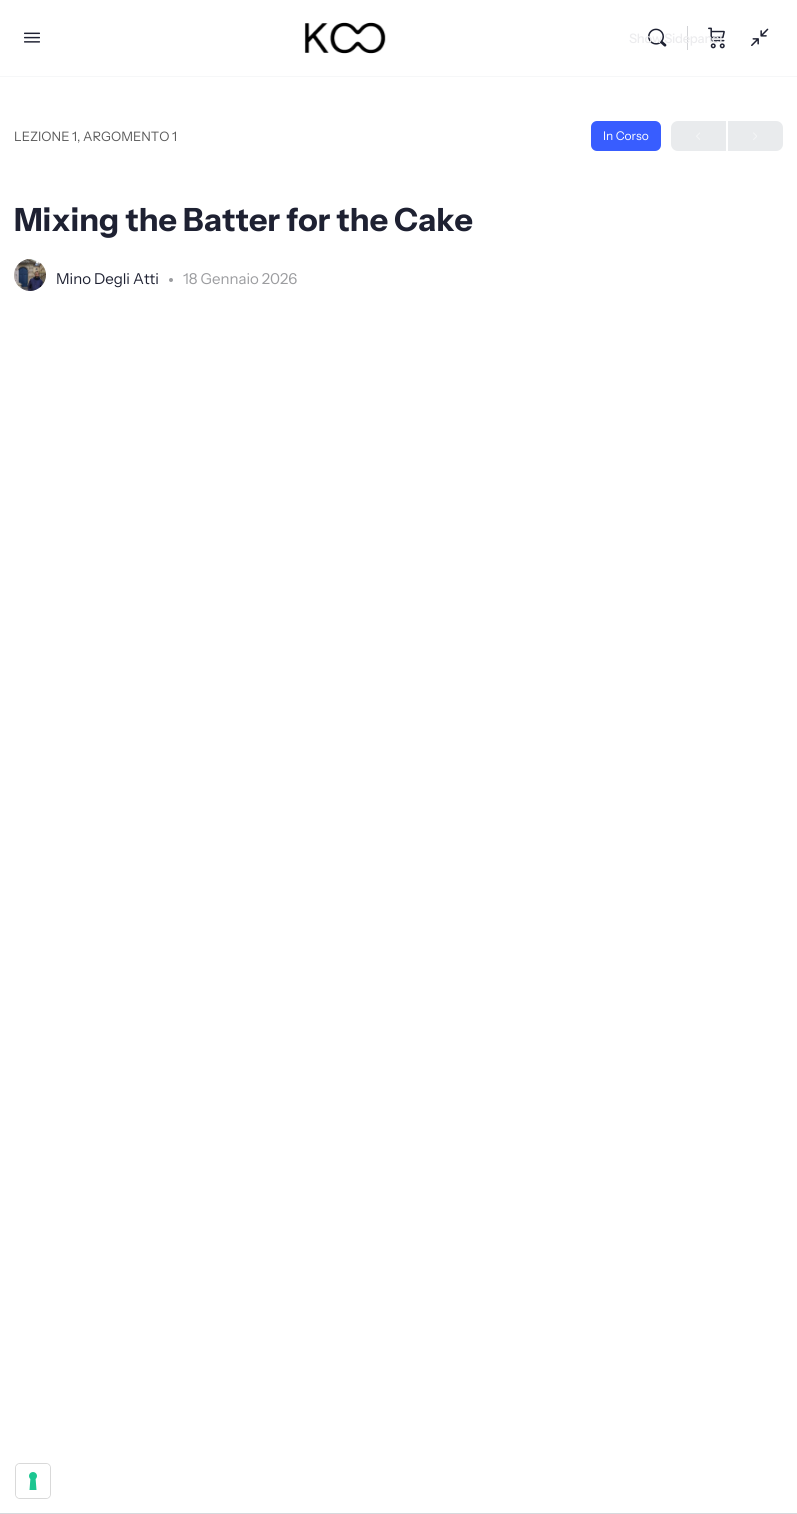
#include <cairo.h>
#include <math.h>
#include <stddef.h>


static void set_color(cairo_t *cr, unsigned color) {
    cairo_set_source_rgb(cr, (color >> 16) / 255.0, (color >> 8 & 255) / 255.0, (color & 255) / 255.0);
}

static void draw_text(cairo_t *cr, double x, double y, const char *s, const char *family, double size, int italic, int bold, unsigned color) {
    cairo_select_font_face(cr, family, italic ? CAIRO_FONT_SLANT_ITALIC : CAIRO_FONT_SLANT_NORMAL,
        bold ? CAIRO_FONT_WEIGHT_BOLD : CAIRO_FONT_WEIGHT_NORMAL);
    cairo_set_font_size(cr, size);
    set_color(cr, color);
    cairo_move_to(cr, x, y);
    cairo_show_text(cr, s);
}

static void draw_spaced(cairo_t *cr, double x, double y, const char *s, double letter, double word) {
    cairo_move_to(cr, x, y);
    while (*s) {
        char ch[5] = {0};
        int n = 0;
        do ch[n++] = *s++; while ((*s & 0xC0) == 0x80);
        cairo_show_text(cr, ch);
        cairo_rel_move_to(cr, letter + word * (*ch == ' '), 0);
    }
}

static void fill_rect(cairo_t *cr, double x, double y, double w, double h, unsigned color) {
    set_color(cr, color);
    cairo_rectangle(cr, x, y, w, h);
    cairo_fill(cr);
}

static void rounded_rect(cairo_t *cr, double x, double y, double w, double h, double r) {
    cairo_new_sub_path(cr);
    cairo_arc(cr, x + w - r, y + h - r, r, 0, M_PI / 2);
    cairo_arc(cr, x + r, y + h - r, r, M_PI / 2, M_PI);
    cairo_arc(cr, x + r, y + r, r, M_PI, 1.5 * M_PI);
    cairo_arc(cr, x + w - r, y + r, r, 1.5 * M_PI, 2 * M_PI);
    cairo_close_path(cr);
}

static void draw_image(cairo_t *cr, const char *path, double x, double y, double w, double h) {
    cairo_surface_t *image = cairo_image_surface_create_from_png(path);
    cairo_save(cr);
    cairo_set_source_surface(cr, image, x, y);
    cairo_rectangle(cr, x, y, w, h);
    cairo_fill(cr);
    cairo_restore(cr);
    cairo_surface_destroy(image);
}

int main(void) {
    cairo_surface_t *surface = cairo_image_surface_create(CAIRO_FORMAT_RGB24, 797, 1514);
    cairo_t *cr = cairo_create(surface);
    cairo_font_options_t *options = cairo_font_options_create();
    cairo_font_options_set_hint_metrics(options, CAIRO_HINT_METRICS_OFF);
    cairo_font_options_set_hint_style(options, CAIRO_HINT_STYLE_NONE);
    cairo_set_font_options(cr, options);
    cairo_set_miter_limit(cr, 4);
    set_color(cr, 0xFFFFFF);
    cairo_paint(cr);
    fill_rect(cr, 0, 76, 797, 1, 0xF6F7F8);
    draw_image(cr, "assets/img1.png", 24, 32, 16, 11);
    draw_image(cr, "assets/img2.png", 304, 22, 82, 32);
    draw_image(cr, "assets/img3.png", 648, 28, 19, 19);
    fill_rect(cr, 687, 26, 1, 24, 0xD2D3D6);
    draw_image(cr, "assets/img4.png", 708, 27, 17, 22);
    cairo_select_font_face(cr, "Instrument Sans Medium", CAIRO_FONT_SLANT_NORMAL, CAIRO_FONT_WEIGHT_NORMAL);
    cairo_set_font_size(cr, 13);
    set_color(cr, 0xECECEE);
    draw_spaced(cr, 629, 43, "Show Sidepanel", -0.25, 0);
    draw_image(cr, "assets/img5.png", 751, 28, 18, 18);
    fill_rect(cr, 0, 1513, 797, 1, 0xD6D9DD);
    draw_text(cr, 14, 141, "LEZIONE 1, ARGOMENTO 1", "Instrument Sans", 13, 0, 0, 0x5A5A5A);
    set_color(cr, 0x385DFF);
    rounded_rect(cr, 591, 121, 70, 30, 6);
    cairo_fill(cr);
    draw_text(cr, 603, 140, "In Corso", "Instrument Sans", 12, 0, 0, 0xFFFFFF);
    set_color(cr, 0xE9EBED);
    cairo_new_path(cr);
    cairo_move_to(cr, 678, 121);
    cairo_line_to(cr, 726, 121);
    cairo_line_to(cr, 726, 151);
    cairo_line_to(cr, 678, 151);
    cairo_curve_to(cr, 674, 151, 671, 148, 671, 144);
    cairo_line_to(cr, 671, 128);
    cairo_curve_to(cr, 671, 124, 674, 121, 678, 121);
    cairo_close_path(cr);
    cairo_fill(cr);
    draw_image(cr, "assets/img6.png", 696, 132, 4, 8);
    cairo_new_path(cr);
    cairo_move_to(cr, 728, 121);
    cairo_line_to(cr, 776, 121);
    cairo_curve_to(cr, 780, 121, 783, 124, 783, 128);
    cairo_line_to(cr, 783, 144);
    cairo_curve_to(cr, 783, 148, 780, 151, 776, 151);
    cairo_line_to(cr, 728, 151);
    cairo_close_path(cr);
    cairo_fill(cr);
    draw_image(cr, "assets/img7.png", 753, 132, 4, 8);
    draw_text(cr, 14, 231, "Mixing the Batter for the Cake", "Instrument Sans", 32, 0, 1, 0x1E2132);
    draw_image(cr, "assets/img8.png", 14, 259, 32, 32);
    draw_text(cr, 56, 284, "Mino Degli Atti", "Instrument Sans", 15, 0, 0, 0x1E2132);
    set_color(cr, 0x9B9C9F);
    cairo_new_path(cr);
    cairo_arc(cr, 171, 280, 2, 0, 2 * M_PI);
    cairo_fill(cr);
    draw_text(cr, 183, 284, "18 Gennaio 2026", "Instrument Sans", 15, 0, 0, 0x9B9C9F);
    rounded_rect(cr, 15.5, 1463.5, 35, 35, 4.5);
    set_color(cr, 0xD9D9D9);
    cairo_set_line_width(cr, 1);
    cairo_stroke(cr);
    set_color(cr, 0xFFFFFF);
    rounded_rect(cr, 16, 1464, 34, 34, 4);
    cairo_fill(cr);
    draw_image(cr, "assets/img9.png", 29, 1472, 8, 18);
    cairo_surface_write_to_png(surface, "output.png");
    cairo_font_options_destroy(options);
    cairo_destroy(cr);
    cairo_surface_destroy(surface);
    return 0;
}
